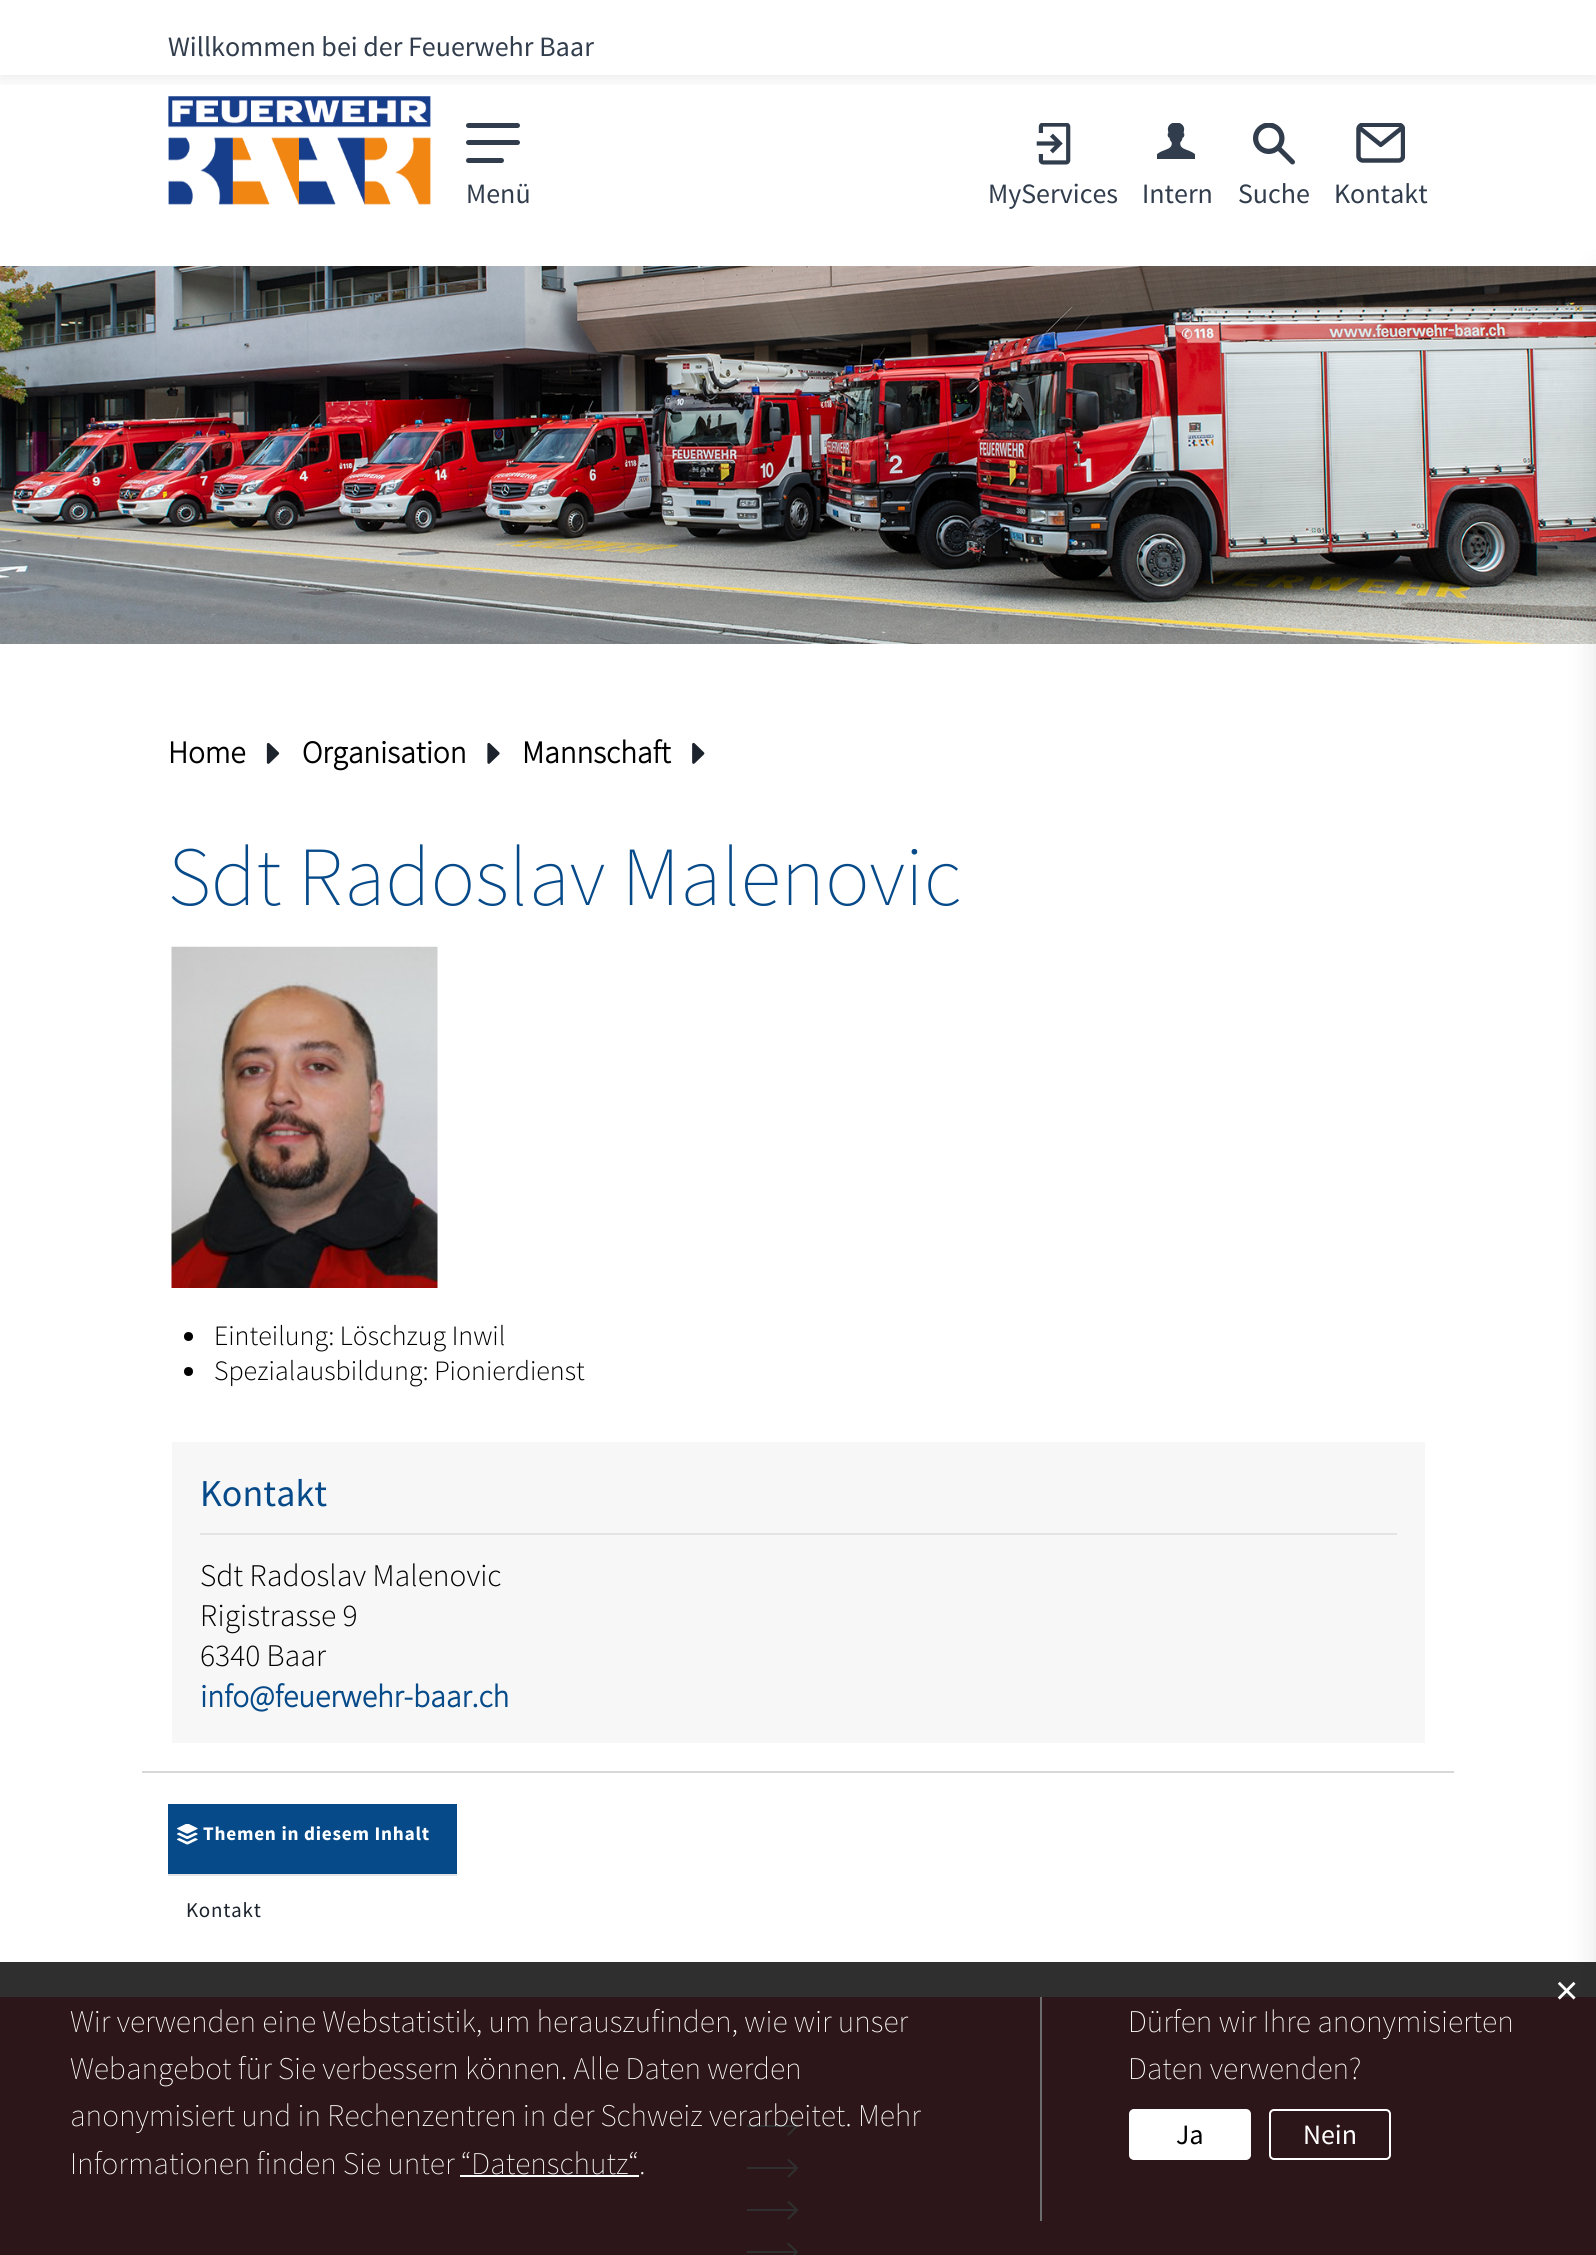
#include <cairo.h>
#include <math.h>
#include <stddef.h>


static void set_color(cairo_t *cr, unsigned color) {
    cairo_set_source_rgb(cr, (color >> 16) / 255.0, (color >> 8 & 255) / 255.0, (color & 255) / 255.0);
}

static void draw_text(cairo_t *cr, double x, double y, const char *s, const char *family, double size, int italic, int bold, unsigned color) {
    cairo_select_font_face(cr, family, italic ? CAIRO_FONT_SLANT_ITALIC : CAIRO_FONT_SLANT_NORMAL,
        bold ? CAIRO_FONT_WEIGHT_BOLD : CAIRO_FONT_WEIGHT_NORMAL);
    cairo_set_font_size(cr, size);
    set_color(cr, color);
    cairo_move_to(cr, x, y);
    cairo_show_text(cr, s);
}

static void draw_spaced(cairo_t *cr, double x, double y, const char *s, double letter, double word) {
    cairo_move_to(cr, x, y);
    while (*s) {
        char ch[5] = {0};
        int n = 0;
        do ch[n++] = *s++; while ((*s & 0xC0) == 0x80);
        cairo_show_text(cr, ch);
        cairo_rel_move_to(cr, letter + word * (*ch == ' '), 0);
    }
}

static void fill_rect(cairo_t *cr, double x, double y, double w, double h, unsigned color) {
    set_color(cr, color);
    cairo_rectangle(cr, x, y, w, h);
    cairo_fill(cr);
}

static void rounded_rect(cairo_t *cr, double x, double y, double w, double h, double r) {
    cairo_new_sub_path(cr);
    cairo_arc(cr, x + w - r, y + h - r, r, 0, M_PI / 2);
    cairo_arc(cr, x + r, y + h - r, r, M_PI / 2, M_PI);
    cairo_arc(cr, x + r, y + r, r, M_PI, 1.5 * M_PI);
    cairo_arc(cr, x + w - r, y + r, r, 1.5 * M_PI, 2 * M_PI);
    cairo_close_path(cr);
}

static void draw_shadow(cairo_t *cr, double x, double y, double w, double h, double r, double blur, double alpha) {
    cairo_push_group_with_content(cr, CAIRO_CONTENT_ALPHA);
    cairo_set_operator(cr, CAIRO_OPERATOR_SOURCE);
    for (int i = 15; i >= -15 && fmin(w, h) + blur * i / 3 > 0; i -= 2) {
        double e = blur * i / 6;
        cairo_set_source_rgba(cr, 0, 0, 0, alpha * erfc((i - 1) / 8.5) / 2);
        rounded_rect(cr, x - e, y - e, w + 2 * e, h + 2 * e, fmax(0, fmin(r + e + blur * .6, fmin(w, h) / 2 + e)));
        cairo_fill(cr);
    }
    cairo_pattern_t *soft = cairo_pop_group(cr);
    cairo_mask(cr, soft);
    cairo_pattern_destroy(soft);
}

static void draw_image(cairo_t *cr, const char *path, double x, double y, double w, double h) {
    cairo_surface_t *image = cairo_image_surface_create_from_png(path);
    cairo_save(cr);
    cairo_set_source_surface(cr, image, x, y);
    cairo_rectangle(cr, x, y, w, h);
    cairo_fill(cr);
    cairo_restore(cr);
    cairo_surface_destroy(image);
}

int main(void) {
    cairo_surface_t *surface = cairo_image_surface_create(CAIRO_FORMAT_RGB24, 1596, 2255);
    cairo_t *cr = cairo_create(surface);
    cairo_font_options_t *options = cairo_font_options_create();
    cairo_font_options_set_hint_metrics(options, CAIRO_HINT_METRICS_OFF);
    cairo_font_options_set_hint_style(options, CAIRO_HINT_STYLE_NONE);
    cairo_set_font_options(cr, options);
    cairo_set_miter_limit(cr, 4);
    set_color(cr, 0xFFFFFF);
    cairo_paint(cr);
    cairo_save(cr);
    cairo_rectangle(cr, 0, 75, 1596, 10);
    cairo_clip(cr);
    set_color(cr, 0x000000);
    draw_shadow(cr, 0, 0, 1596, 75, 0, 10.5, 0.11);
    cairo_restore(cr);
    draw_text(cr, 168, 56, "Willkommen bei der Feuerwehr Baar", "Source Sans Pro", 28, 0, 0, 0x313D4C);
    draw_image(cr, "assets/img1.png", 168, 96, 263, 109);
    rounded_rect(cr, 466, 123, 54, 5, 2.5);
    cairo_fill(cr);
    rounded_rect(cr, 466, 140, 54, 5, 2.5);
    cairo_fill(cr);
    rounded_rect(cr, 466, 158, 38, 5, 2.5);
    cairo_fill(cr);
    draw_text(cr, 466, 203, "Menü", "Source Sans Pro", 28, 0, 0, 0x313D4C);
    draw_image(cr, "assets/img2.png", 1036, 123, 35, 42);
    draw_text(cr, 988, 203, "MyServices", "Source Sans Pro", 28, 0, 0, 0x313D4C);
    draw_image(cr, "assets/img3.png", 1157, 123, 38, 36);
    draw_text(cr, 1142, 203, "Intern", "Source Sans Pro", 28, 0, 0, 0x313D4C);
    draw_image(cr, "assets/img4.png", 1253, 123, 42, 42);
    draw_text(cr, 1238, 203, "Suche", "Source Sans Pro", 28, 0, 0, 0x313D4C);
    draw_image(cr, "assets/img5.png", 1356, 123, 49, 40);
    draw_text(cr, 1334, 203, "Kontakt", "Source Sans Pro", 28, 0, 0, 0x313D4C);
    draw_image(cr, "assets/img6.png", 0, 266, 1596, 378);
    fill_rect(cr, 142, 1771, 1312, 2, 0xD8D8D8);
    draw_text(cr, 168, 763, "Home", "Source Sans Pro", 31.5, 0, 1, 0x000000);
    draw_image(cr, "assets/img7.png", 266, 742, 14, 22);
    draw_text(cr, 302, 763, "Organisation", "Source Sans Pro", 31.5, 0, 1, 0x000000);
    draw_image(cr, "assets/img8.png", 487, 742, 13, 22);
    draw_text(cr, 522, 763, "Mannschaft", "Source Sans Pro", 31.5, 0, 1, 0x000000);
    draw_image(cr, "assets/img9.png", 692, 742, 13, 22);
    draw_text(cr, 168, 905, "Sdt Radoslav Malenovic", "Source Sans Pro ExtraLight", 84, 0, 0, 0x064A89);
    draw_image(cr, "assets/img10.png", 171, 946, 267, 342);
    set_color(cr, 0x000000);
    cairo_arc(cr, 188.5, 1336.5, 4.5, 0, 2 * M_PI);
    cairo_fill(cr);
    draw_text(cr, 214, 1345, "Einteilung: Löschzug Inwil", "Source Sans Pro Light", 28, 0, 0, 0x000000);
    cairo_new_path(cr);
    cairo_arc(cr, 188.5, 1371.5, 4.5, 0, 2 * M_PI);
    cairo_fill(cr);
    draw_text(cr, 214, 1380, "Spezialausbildung: Pionierdienst", "Source Sans Pro Light", 28, 0, 0, 0x000000);
    fill_rect(cr, 172, 1442, 1253, 301, 0xF7F7F7);
    fill_rect(cr, 200, 1533, 1197, 2, 0xE4E4E4);
    draw_text(cr, 200, 1506, "Kontakt", "Source Sans Pro", 38, 0, 0, 0x064A89);
    draw_text(cr, 200, 1586, "Sdt Radoslav Malenovic", "Source Sans Pro Light", 31.5, 0, 0, 0x000000);
    draw_text(cr, 200, 1626, "Rigistrasse 9", "Source Sans Pro Light", 31.5, 0, 0, 0x000000);
    draw_text(cr, 200, 1666, "6340 Baar", "Source Sans Pro Light", 31.5, 0, 0, 0x000000);
    draw_text(cr, 200, 1707, "info@feuerwehr-baar.ch", "Source Sans Pro", 31.5, 0, 1, 0x064A89);
    fill_rect(cr, 168, 1804, 289, 70, 0x064A89);
    fill_rect(cr, 168, 1874, 289, 2, 0xE4E4E4);
    draw_image(cr, "assets/img11.png", 177, 1824, 21, 21);
    cairo_select_font_face(cr, "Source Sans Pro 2", CAIRO_FONT_SLANT_NORMAL, CAIRO_FONT_WEIGHT_BOLD);
    cairo_set_font_size(cr, 19.25);
    set_color(cr, 0xFFFFFF);
    draw_spaced(cr, 203, 1840, "Themen in diesem Inhalt", 0.75, 0);
    cairo_select_font_face(cr, "Source Sans Pro", CAIRO_FONT_SLANT_NORMAL, CAIRO_FONT_WEIGHT_NORMAL);
    cairo_set_font_size(cr, 21);
    set_color(cr, 0x1C232C);
    draw_spaced(cr, 186, 1917, "Kontakt", 0.75, 0);
    fill_rect(cr, 0, 1997, 1596, 258, 0xE80020);
    set_color(cr, 0x000000);
    draw_shadow(cr, 1596, 275, 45, 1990, 0, 15, 0.11);
    cairo_new_path(cr);
    cairo_move_to(cr, 788.5, 2118);
    cairo_line_to(cr, 797, 2126);
    cairo_line_to(cr, 788.5, 2134.5);
    set_color(cr, 0xFFFFFF);
    cairo_set_line_width(cr, 2.1);
    cairo_set_line_cap(cr, CAIRO_LINE_CAP_ROUND);
    cairo_set_line_join(cr, CAIRO_LINE_JOIN_ROUND);
    cairo_stroke(cr);
    fill_rect(cr, 747, 2125, 49, 2, 0xFFFFFF);
    cairo_new_path(cr);
    cairo_move_to(cr, 788.5, 2160);
    cairo_line_to(cr, 797, 2168);
    cairo_line_to(cr, 788.5, 2176.5);
    cairo_stroke(cr);
    fill_rect(cr, 747, 2167, 49, 2, 0xFFFFFF);
    cairo_new_path(cr);
    cairo_move_to(cr, 788.5, 2202);
    cairo_line_to(cr, 797, 2210);
    cairo_line_to(cr, 788.5, 2218.5);
    cairo_stroke(cr);
    fill_rect(cr, 747, 2209, 49, 2, 0xFFFFFF);
    cairo_new_path(cr);
    cairo_move_to(cr, 788.5, 2244);
    cairo_line_to(cr, 797, 2252);
    cairo_line_to(cr, 788.5, 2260.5);
    cairo_stroke(cr);
    fill_rect(cr, 747, 2251, 49, 2, 0xFFFFFF);
    cairo_set_source_rgba(cr, 0.098, 0.098, 0.098, 0.9);
    cairo_rectangle(cr, 0, 1962, 1596, 293);
    cairo_fill(cr);
    draw_text(cr, 1555, 2004, "×", "Liberation Sans", 40, 0, 0, 0xFFFFFF);
    fill_rect(cr, 1040, 1997, 2, 224, 0x6D6D6D);
    draw_text(cr, 70, 2032, "Wir verwenden eine Webstatistik, um herauszufinden, wie wir unser", "Source Sans Pro ExtraLight", 31.5, 0, 0, 0xFFFFFF);
    draw_text(cr, 70, 2079, "Webangebot für Sie verbessern können. Alle Daten werden", "Source Sans Pro ExtraLight", 31.5, 0, 0, 0xFFFFFF);
    draw_text(cr, 70, 2126, "anonymisiert und in Rechenzentren in der Schweiz verarbeitet. Mehr", "Source Sans Pro ExtraLight", 31.5, 0, 0, 0xFFFFFF);
    draw_text(cr, 70, 2174, "Informationen finden Sie unter “Datenschutz“.", "Source Sans Pro ExtraLight", 31.5, 0, 0, 0xFFFFFF);
    fill_rect(cr, 460, 2175, 179, 2, 0xFFFFFF);
    draw_text(cr, 1128, 2032, "Dürfen wir Ihre anonymisierten", "Source Sans Pro ExtraLight", 31.5, 0, 0, 0xFFFFFF);
    draw_text(cr, 1128, 2079, "Daten verwenden?", "Source Sans Pro ExtraLight", 31.5, 0, 0, 0xFFFFFF);
    rounded_rect(cr, 1130, 2110, 120, 49, 4);
    cairo_fill_preserve(cr);
    cairo_set_line_width(cr, 2);
    cairo_set_line_cap(cr, CAIRO_LINE_CAP_BUTT);
    cairo_set_line_join(cr, CAIRO_LINE_JOIN_MITER);
    cairo_stroke(cr);
    draw_text(cr, 1176, 2144, "Ja", "Source Sans Pro", 28, 0, 0, 0x000000);
    rounded_rect(cr, 1270, 2110, 120, 49, 4);
    set_color(cr, 0xFFFFFF);
    cairo_stroke(cr);
    draw_text(cr, 1303, 2144, "Nein", "Source Sans Pro", 28, 0, 0, 0xFFFFFF);
    cairo_surface_write_to_png(surface, "output.png");
    cairo_font_options_destroy(options);
    cairo_destroy(cr);
    cairo_surface_destroy(surface);
    return 0;
}
